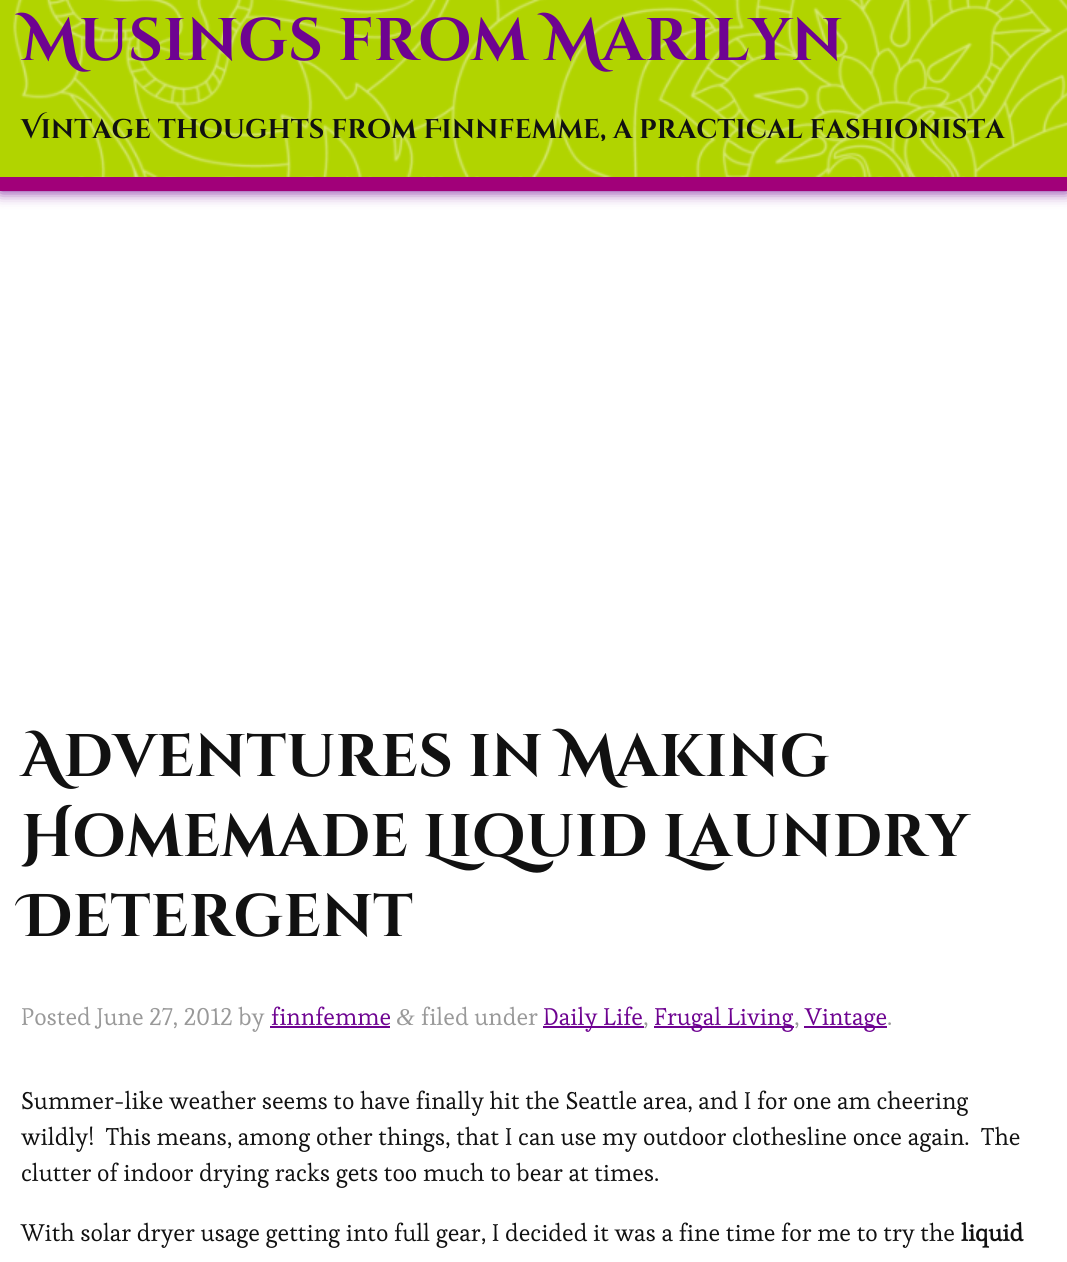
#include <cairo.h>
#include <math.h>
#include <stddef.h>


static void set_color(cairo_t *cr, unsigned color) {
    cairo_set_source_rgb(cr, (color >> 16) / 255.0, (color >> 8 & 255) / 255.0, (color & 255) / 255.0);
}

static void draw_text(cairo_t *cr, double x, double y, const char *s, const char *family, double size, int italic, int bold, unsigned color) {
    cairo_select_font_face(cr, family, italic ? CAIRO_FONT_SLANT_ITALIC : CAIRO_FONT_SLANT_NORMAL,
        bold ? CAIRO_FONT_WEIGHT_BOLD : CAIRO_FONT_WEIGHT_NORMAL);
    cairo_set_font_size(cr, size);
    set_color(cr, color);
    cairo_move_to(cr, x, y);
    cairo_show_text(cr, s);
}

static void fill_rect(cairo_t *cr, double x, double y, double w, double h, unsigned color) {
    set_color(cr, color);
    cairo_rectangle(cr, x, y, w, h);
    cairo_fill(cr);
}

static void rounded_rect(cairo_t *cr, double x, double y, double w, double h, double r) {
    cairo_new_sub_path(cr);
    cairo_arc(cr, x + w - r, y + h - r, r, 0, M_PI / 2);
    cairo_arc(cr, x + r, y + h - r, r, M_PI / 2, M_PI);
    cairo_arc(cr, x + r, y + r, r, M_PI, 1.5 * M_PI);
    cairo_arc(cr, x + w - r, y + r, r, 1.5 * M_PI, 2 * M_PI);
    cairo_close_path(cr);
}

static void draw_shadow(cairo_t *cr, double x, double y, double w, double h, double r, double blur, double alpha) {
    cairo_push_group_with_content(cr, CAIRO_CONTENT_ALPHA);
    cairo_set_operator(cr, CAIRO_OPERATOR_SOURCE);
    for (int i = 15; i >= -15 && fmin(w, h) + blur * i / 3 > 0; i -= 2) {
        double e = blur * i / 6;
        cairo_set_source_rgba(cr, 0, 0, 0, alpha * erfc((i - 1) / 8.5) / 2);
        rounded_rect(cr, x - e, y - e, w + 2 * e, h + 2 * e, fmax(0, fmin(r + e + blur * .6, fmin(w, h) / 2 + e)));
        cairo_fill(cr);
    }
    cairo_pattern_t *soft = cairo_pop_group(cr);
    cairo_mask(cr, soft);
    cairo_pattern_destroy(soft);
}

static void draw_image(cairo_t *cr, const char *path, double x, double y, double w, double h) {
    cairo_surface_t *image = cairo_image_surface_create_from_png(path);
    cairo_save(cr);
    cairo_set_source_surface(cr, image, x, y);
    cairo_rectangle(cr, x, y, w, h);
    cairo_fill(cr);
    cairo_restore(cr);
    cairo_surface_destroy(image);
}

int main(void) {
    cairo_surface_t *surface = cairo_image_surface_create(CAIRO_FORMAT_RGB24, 1067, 1262);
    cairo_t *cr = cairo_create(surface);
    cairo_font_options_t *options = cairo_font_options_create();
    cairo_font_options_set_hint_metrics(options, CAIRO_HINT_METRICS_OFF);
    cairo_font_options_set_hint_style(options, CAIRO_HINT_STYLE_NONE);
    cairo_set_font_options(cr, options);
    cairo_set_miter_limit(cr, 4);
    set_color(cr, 0xFFFFFF);
    cairo_paint(cr);
    set_color(cr, 0x6E0391);
    draw_shadow(cr, 0, -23, 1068, 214, 0, 7.5, 1);
    fill_rect(cr, 0, 0, 1067, 177, 0xB1D400);
    draw_image(cr, "assets/img1.png", 12, 0, 1055, 177);
    fill_rect(cr, 0, 177, 1067, 14, 0xA10079);
    draw_text(cr, 21, 60, "Musings from Marilyn", "Cinzel Decorative", 60, 0, 1, 0x6E0391);
    draw_text(cr, 21, 138, "Vintage thoughts from Finnfemme, a practical fashionista", "Cinzel Decorative", 27, 0, 1, 0x111111);
    draw_text(cr, 21, 776, "Adventures in Making", "Cinzel Decorative", 60, 0, 1, 0x111111);
    draw_text(cr, 21, 856, "Homemade Liquid Laundry", "Cinzel Decorative", 60, 0, 1, 0x111111);
    draw_text(cr, 21, 936, "Detergent", "Cinzel Decorative", 60, 0, 1, 0x111111);
    draw_text(cr, 21, 1025, "Posted June 27, 2012 by", "Esteban", 24, 0, 0, 0x999999);
    draw_text(cr, 271, 1025, "finnfemme", "Esteban", 24, 0, 0, 0x6E0391);
    fill_rect(cr, 270, 1026, 120, 2, 0x6E0391);
    draw_text(cr, 396, 1025, "&", "Liberation Serif", 24, 1, 0, 0x999999);
    draw_text(cr, 421, 1025, "filed under", "Esteban", 24, 0, 0, 0x999999);
    fill_rect(cr, 543, 1026, 101, 2, 0x6E0391);
    draw_text(cr, 543, 1025, "Daily Life", "Esteban", 24, 0, 0, 0x6E0391);
    draw_text(cr, 643, 1025, ",", "Esteban", 24, 0, 0, 0x999999);
    fill_rect(cr, 654, 1026, 140, 2, 0x6E0391);
    draw_text(cr, 654, 1025, "Frugal Living", "Esteban", 24, 0, 0, 0x6E0391);
    draw_text(cr, 794, 1025, ",", "Esteban", 24, 0, 0, 0x999999);
    fill_rect(cr, 804, 1026, 83, 2, 0x6E0391);
    draw_text(cr, 805, 1025, "Vintage", "Esteban", 24, 0, 0, 0x6E0391);
    draw_text(cr, 887, 1025, ".", "Esteban", 24, 0, 0, 0x999999);
    draw_text(cr, 21, 1109, "Summer-like weather seems to have finally hit the Seattle area, and I for one am cheering", "Esteban", 24, 0, 0, 0x111111);
    draw_text(cr, 21, 1145, "wildly!  This means, among other things, that I can use my outdoor clothesline once again.  The", "Esteban", 24, 0, 0, 0x111111);
    draw_text(cr, 21, 1181, "clutter of indoor drying racks gets too much to bear at times.", "Esteban", 24, 0, 0, 0x111111);
    draw_text(cr, 21, 1241, "With solar dryer usage getting into full gear, I decided it was a fine time for me to try the", "Esteban", 24, 0, 0, 0x111111);
    draw_text(cr, 961, 1241, "liquid", "Esteban", 24, 0, 1, 0x111111);
    cairo_surface_write_to_png(surface, "output.png");
    cairo_font_options_destroy(options);
    cairo_destroy(cr);
    cairo_surface_destroy(surface);
    return 0;
}
